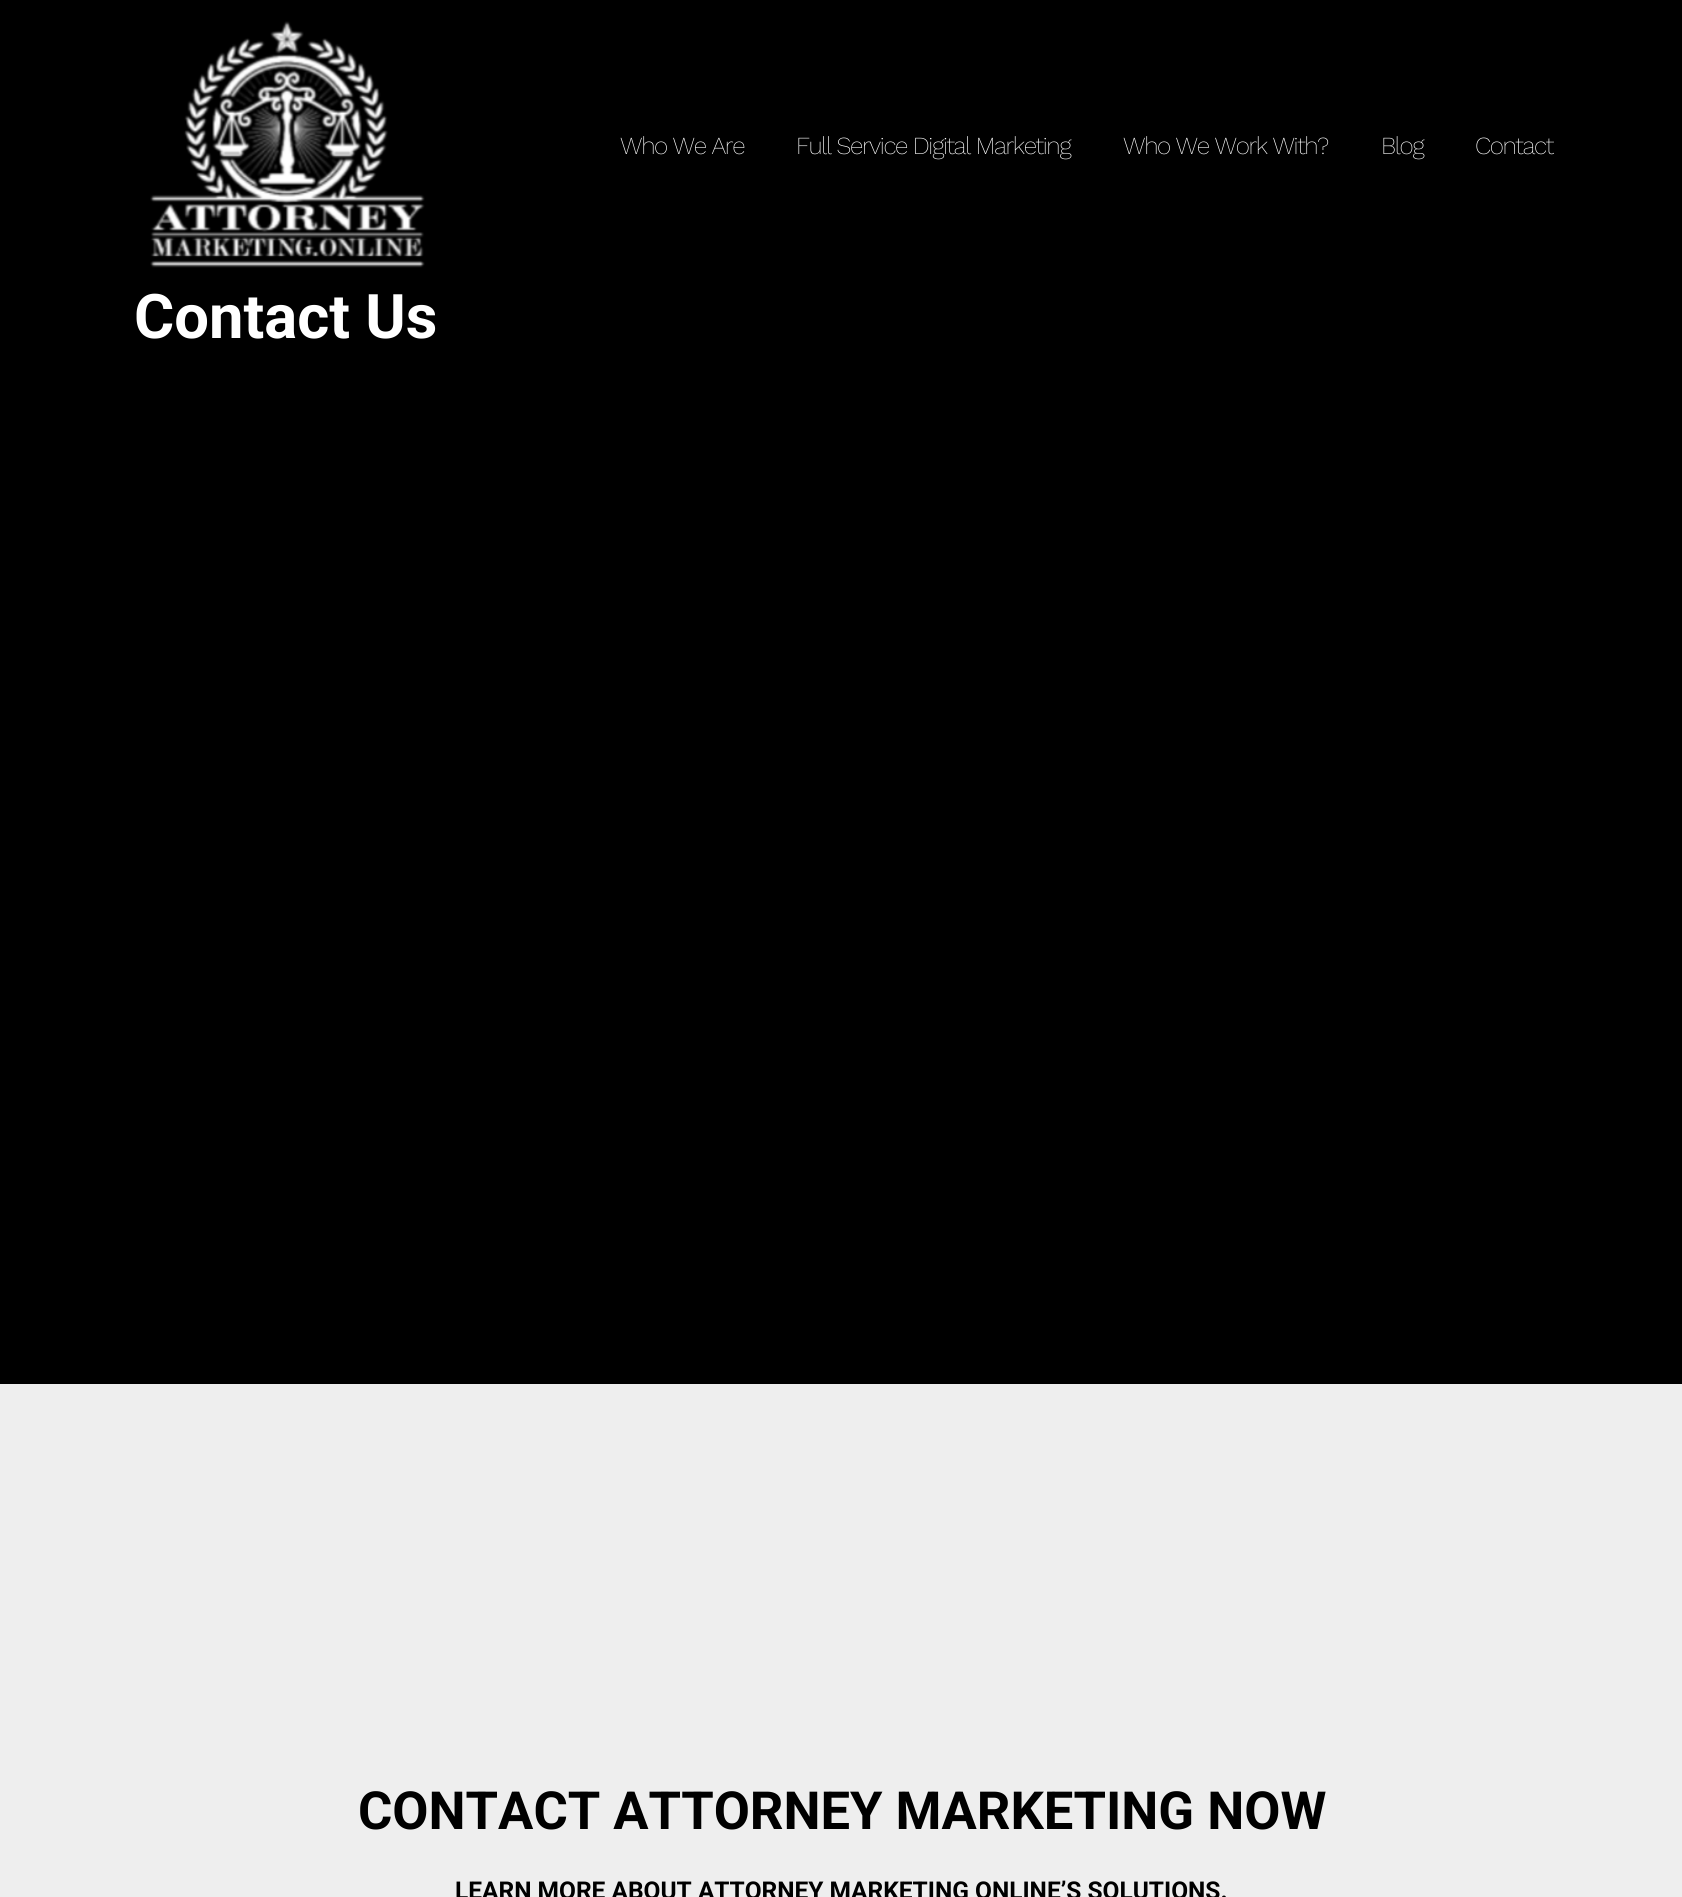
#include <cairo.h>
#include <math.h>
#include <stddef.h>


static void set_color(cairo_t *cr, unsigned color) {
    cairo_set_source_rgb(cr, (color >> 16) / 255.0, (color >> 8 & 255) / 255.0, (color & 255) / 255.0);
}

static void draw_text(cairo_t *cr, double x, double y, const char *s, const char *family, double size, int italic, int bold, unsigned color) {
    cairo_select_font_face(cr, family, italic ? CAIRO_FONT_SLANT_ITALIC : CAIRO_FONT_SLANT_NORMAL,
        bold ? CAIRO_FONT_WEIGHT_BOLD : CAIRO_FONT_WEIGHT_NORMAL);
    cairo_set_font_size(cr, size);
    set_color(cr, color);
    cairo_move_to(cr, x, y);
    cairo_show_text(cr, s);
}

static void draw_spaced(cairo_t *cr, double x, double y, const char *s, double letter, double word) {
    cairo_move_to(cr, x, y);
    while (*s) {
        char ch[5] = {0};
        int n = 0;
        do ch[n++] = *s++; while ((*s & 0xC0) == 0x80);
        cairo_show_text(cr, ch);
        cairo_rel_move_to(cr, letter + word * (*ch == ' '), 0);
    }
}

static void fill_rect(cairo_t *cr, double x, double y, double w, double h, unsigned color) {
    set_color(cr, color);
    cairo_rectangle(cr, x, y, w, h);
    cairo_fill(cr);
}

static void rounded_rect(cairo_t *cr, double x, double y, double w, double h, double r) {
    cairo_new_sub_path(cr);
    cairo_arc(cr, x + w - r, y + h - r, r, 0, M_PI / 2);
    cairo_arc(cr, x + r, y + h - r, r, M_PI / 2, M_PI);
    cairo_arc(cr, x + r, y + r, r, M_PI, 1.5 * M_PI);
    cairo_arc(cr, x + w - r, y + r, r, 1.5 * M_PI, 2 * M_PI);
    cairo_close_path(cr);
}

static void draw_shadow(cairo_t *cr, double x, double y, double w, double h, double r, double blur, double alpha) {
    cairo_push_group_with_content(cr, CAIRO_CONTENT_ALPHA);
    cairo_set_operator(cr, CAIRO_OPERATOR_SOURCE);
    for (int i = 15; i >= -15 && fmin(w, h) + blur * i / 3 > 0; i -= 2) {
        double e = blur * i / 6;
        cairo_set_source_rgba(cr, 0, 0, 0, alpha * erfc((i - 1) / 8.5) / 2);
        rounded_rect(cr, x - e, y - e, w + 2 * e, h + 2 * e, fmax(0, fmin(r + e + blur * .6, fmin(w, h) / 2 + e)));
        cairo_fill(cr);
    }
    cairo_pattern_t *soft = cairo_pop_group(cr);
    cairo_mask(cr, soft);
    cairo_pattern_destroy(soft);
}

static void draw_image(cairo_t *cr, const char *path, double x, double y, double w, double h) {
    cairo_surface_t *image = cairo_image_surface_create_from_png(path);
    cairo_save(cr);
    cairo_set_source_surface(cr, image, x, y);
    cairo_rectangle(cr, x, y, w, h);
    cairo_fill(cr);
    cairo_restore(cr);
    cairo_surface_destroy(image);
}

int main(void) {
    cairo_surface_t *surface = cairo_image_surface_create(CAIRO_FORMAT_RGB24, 1682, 1897);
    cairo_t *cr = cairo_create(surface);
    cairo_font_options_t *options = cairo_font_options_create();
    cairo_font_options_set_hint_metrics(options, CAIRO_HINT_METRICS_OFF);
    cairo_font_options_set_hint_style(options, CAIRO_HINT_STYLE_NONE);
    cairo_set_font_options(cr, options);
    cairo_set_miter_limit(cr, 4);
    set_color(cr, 0x000000);
    cairo_paint(cr);
    draw_image(cr, "assets/img1.png", 150, 21, 275, 247);
    cairo_select_font_face(cr, "Work Sans ExtraLight", CAIRO_FONT_SLANT_NORMAL, CAIRO_FONT_WEIGHT_NORMAL);
    cairo_set_font_size(cr, 24.5);
    set_color(cr, 0xFFFFFF);
    draw_spaced(cr, 620, 154, "Who We Are", -1.35, 0);
    draw_spaced(cr, 796, 154, "Full Service Digital Marketing", -1.35, 0);
    draw_spaced(cr, 1123, 154, "Who We Work With?", -1.35, 0);
    draw_spaced(cr, 1381, 154, "Blog", -1.35, 0);
    draw_spaced(cr, 1475, 154, "Contact", -1.35, 0);
    set_color(cr, 0x000000);
    draw_shadow(cr, 0, 294, 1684, 2, 0, 2, 0.15);
    draw_text(cr, 134, 338, "Contact Us", "Roboto", 61.5, 0, 1, 0xFFFFFF);
    fill_rect(cr, 0, 1384, 1682, 513, 0xEEEEEE);
    draw_text(cr, 358, 1829, "CONTACT ATTORNEY MARKETING NOW", "Roboto", 52.5, 0, 1, 0x000000);
    draw_text(cr, 455, 1899, "LEARN MORE ABOUT ATTORNEY MARKETING ONLINE’S SOLUTIONS.", "Roboto", 24.5, 0, 1, 0x000000);
    cairo_surface_write_to_png(surface, "output.png");
    cairo_font_options_destroy(options);
    cairo_destroy(cr);
    cairo_surface_destroy(surface);
    return 0;
}
